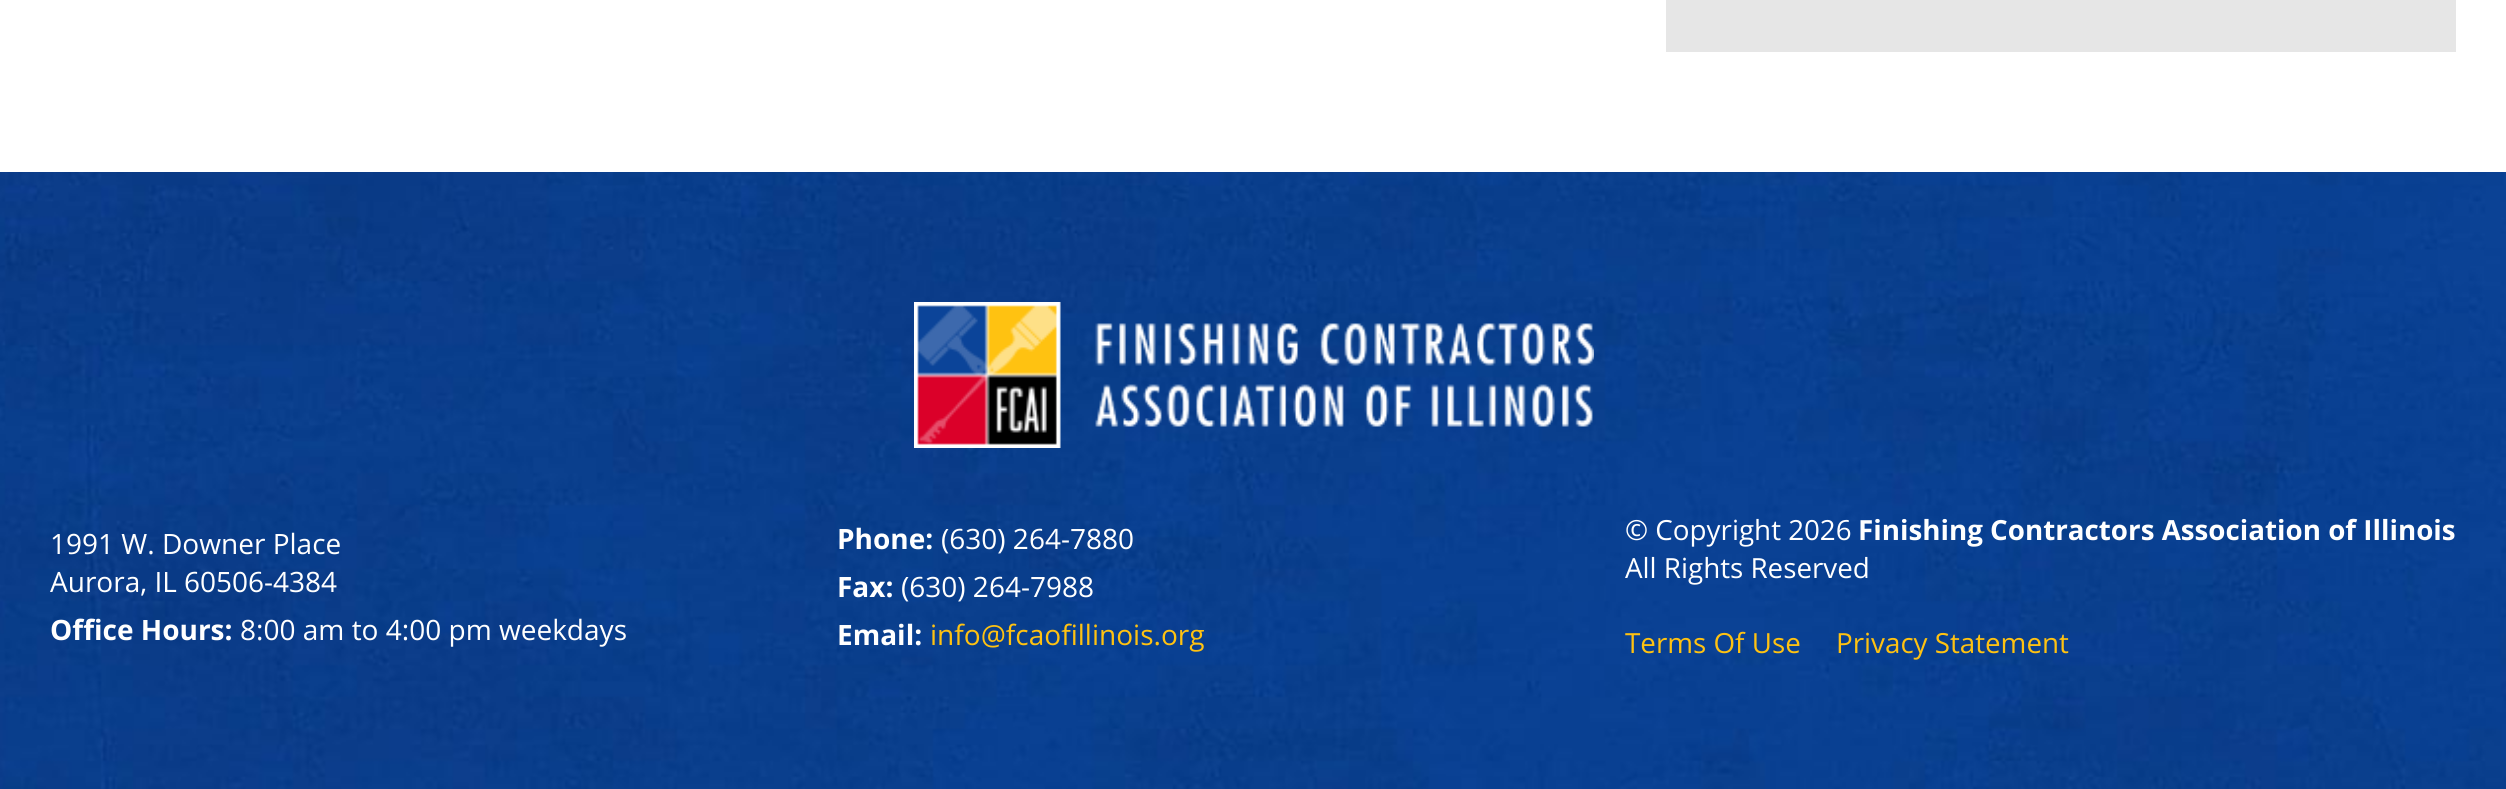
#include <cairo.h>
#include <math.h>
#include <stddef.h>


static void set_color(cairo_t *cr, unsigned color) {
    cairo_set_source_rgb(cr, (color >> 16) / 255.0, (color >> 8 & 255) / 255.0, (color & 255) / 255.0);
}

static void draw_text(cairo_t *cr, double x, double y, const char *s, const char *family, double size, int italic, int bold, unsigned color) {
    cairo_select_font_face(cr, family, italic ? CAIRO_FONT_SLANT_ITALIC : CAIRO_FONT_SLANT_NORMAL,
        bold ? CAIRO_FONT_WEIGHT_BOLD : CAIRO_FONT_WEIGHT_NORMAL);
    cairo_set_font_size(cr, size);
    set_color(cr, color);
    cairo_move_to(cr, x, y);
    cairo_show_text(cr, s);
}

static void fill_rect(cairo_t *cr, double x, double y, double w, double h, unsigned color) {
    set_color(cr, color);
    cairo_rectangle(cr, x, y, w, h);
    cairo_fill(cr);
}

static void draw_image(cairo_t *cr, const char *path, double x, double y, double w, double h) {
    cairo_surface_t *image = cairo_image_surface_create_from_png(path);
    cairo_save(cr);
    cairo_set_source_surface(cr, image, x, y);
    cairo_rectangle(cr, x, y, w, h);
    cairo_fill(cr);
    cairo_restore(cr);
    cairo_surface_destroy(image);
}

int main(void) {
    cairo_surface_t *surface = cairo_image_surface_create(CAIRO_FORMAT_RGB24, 2506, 789);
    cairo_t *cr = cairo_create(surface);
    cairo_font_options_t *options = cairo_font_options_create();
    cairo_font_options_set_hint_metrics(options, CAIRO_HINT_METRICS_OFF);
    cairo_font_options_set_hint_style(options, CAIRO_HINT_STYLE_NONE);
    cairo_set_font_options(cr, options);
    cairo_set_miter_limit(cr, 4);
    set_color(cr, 0xFFFFFF);
    cairo_paint(cr);
    fill_rect(cr, 1666, 0, 790, 52, 0xE6E6E6);
    draw_image(cr, "assets/img1.png", 0, 172, 2506, 617);
    draw_image(cr, "assets/img2.png", 914, 302, 680, 146);
    draw_text(cr, 50, 554, "1991 W. Downer Place", "Open Sans", 28, 0, 0, 0xFFFFFF);
    draw_text(cr, 50, 592, "Aurora, IL 60506-4384", "Open Sans", 28, 0, 0, 0xFFFFFF);
    draw_text(cr, 50, 640, "Office Hours:", "Open Sans", 28, 0, 1, 0xFFFFFF);
    draw_text(cr, 240, 640, "8:00 am to 4:00 pm weekdays", "Open Sans", 28, 0, 0, 0xFFFFFF);
    draw_text(cr, 837, 549, "Phone:", "Open Sans", 28, 0, 1, 0xFFFFFF);
    draw_text(cr, 941, 549, "(630) 264-7880", "Open Sans", 28, 0, 0, 0xFFFFFF);
    draw_text(cr, 837, 597, "Fax:", "Open Sans", 28, 0, 1, 0xFFFFFF);
    draw_text(cr, 901, 597, "(630) 264-7988", "Open Sans", 28, 0, 0, 0xFFFFFF);
    draw_text(cr, 837, 645, "Email:", "Open Sans", 28, 0, 1, 0xFFFFFF);
    draw_text(cr, 930, 645, "info@fcaofillinois.org", "Open Sans", 28, 0, 0, 0xFFC211);
    draw_text(cr, 1625, 540, "© Copyright 2026", "Open Sans", 27.75, 0, 0, 0xFFFFFF);
    draw_text(cr, 1858, 540, "Finishing Contractors Association of Illinois", "Open Sans", 27.75, 0, 1, 0xFFFFFF);
    draw_text(cr, 1625, 578, "All Rights Reserved", "Open Sans", 27.75, 0, 0, 0xFFFFFF);
    draw_text(cr, 1625, 653, "Terms Of Use", "Open Sans", 27.75, 0, 0, 0xFFC211);
    draw_text(cr, 1836, 653, "Privacy Statement", "Open Sans", 27.75, 0, 0, 0xFFC211);
    cairo_surface_write_to_png(surface, "output.png");
    cairo_font_options_destroy(options);
    cairo_destroy(cr);
    cairo_surface_destroy(surface);
    return 0;
}
